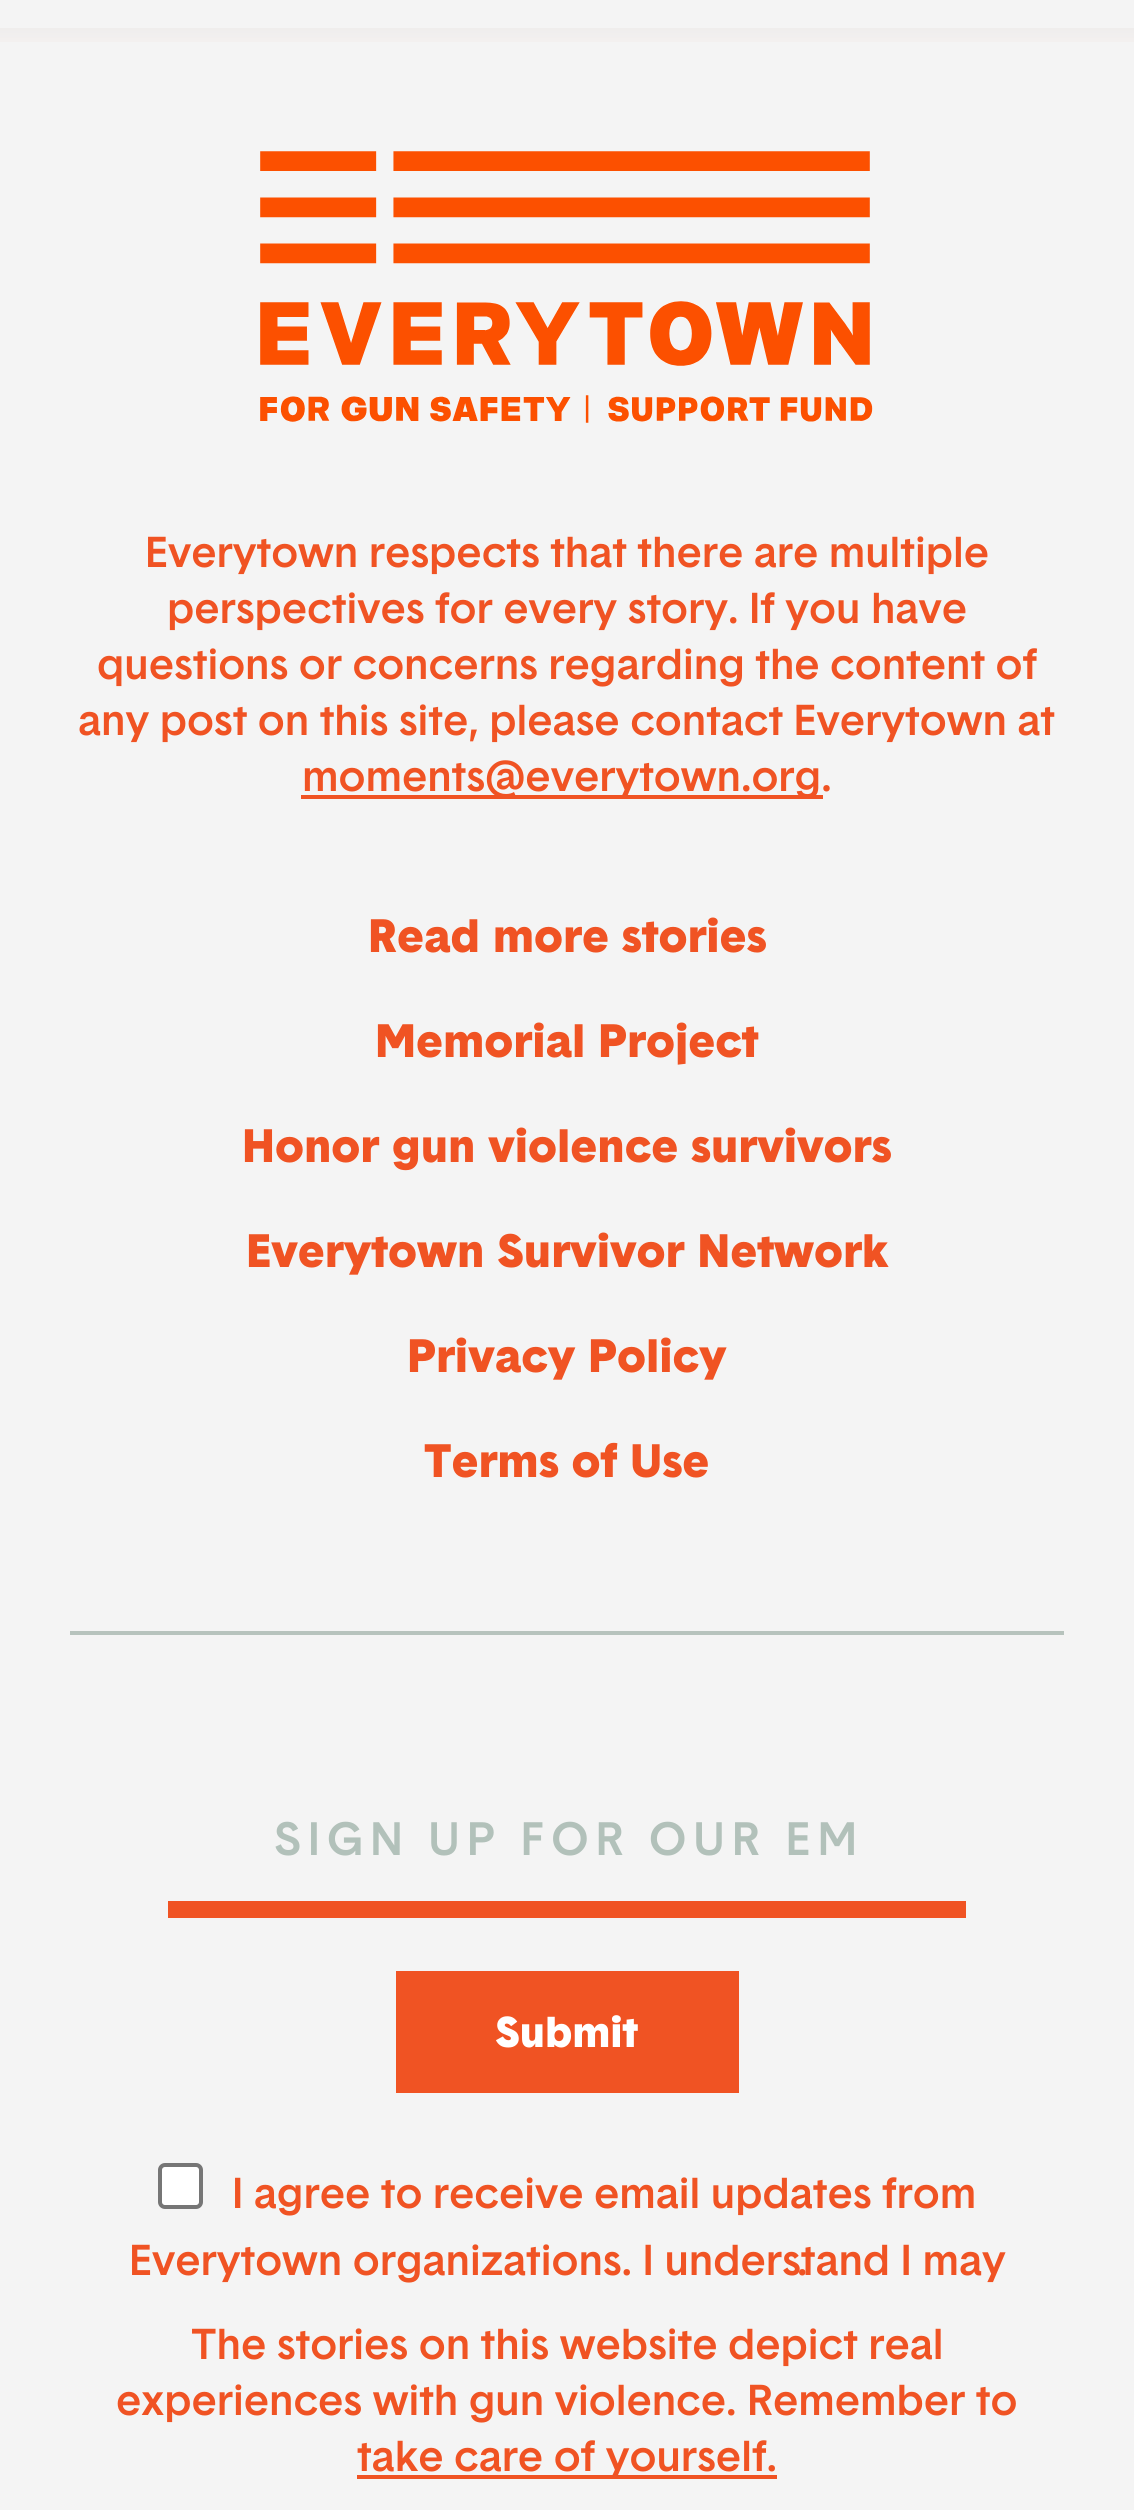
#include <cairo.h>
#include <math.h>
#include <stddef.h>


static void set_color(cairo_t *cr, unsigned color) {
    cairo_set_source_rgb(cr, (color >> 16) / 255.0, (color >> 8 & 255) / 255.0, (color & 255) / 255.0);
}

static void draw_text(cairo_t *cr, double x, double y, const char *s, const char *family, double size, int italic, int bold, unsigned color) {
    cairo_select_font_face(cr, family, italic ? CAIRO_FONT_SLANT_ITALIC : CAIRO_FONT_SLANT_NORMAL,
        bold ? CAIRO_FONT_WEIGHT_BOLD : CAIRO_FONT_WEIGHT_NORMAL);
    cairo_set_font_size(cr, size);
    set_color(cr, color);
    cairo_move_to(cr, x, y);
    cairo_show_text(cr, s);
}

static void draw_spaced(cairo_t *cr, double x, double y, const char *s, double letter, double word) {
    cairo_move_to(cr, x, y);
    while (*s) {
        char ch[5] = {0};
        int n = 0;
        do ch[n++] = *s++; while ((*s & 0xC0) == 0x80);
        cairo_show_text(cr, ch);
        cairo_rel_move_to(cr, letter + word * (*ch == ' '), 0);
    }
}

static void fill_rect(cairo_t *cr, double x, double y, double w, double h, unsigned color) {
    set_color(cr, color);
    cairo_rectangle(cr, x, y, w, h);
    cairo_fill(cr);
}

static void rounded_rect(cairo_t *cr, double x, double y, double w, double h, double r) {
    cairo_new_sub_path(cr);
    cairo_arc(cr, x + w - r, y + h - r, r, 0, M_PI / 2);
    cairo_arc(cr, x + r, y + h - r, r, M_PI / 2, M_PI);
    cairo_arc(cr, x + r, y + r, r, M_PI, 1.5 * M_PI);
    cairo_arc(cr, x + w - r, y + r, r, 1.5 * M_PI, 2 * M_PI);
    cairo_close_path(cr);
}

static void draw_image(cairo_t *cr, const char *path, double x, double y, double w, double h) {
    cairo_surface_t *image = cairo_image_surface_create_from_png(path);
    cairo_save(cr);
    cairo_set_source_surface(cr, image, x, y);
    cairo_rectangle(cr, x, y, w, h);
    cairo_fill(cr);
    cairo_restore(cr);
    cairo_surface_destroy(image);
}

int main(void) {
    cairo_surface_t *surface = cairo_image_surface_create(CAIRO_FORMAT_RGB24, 1134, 2510);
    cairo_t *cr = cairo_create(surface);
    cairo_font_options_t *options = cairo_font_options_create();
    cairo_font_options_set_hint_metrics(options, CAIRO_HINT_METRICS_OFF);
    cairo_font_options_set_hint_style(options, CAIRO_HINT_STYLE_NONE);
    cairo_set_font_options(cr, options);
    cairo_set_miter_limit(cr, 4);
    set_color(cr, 0xF4F4F4);
    cairo_paint(cr);
    draw_image(cr, "assets/img1.png", 0, 28, 1134, 14);
    draw_image(cr, "assets/img2.png", 260, 151, 613, 272);
    draw_text(cr, 145, 567, "Everytown respects that there are multiple", "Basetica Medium", 42, 0, 0, 0xF05323);
    draw_text(cr, 167, 623, "perspectives for every story. If you have", "Basetica Medium", 42, 0, 0, 0xF05323);
    draw_text(cr, 97, 679, "questions or concerns regarding the content of", "Basetica Medium", 42, 0, 0, 0xF05323);
    draw_text(cr, 78, 735, "any post on this site, please contact Everytown at", "Basetica Medium", 42, 0, 0, 0xF05323);
    fill_rect(cr, 301, 795, 522, 4, 0xF05323);
    draw_text(cr, 302, 791, "moments@everytown.org.", "Basetica Medium", 42, 0, 0, 0xF05323);
    draw_text(cr, 368, 952, "Read more stories", "Basetica Black", 45.5, 0, 0, 0xF05323);
    draw_text(cr, 375, 1057, "Memorial Project", "Basetica Black", 45.5, 0, 0, 0xF05323);
    draw_text(cr, 242, 1162, "Honor gun violence survivors", "Basetica Black", 45.5, 0, 0, 0xF05323);
    draw_text(cr, 246, 1267, "Everytown Survivor Network", "Basetica Black", 45.5, 0, 0, 0xF05323);
    draw_text(cr, 407, 1372, "Privacy Policy", "Basetica Black", 45.5, 0, 0, 0xF05323);
    draw_text(cr, 424, 1477, "Terms of Use", "Basetica Black", 45.5, 0, 0, 0xF05323);
    fill_rect(cr, 70, 1631, 994, 4, 0xB7C3BD);
    fill_rect(cr, 168, 1901, 798, 17, 0xF05323);
    cairo_select_font_face(cr, "Basetica Medium", CAIRO_FONT_SLANT_NORMAL, CAIRO_FONT_WEIGHT_NORMAL);
    set_color(cr, 0xB2C1BA);
    draw_spaced(cr, 274, 1855, "SIGN UP FOR OUR EM", 7, 0);
    fill_rect(cr, 396, 1971, 343, 122, 0xF05323);
    draw_text(cr, 495, 2047, "Submit", "Basetica Black", 42, 0, 0, 0xFFFFFF);
    rounded_rect(cr, 160, 2165, 41, 42, 5);
    cairo_fill_preserve(cr);
    set_color(cr, 0x767676);
    cairo_set_line_width(cr, 4);
    cairo_stroke(cr);
    draw_text(cr, 232, 2208, "I agree to receive email updates from", "Basetica Medium", 42, 0, 0, 0xF05323);
    draw_text(cr, 129, 2275, "Everytown organizations. I understand I may", "Basetica Medium", 42, 0, 0, 0xF05323);
    draw_text(cr, 797, 2275, ".", "Basetica Medium", 42, 0, 0, 0xF05323);
    draw_text(cr, 191, 2359, "The stories on this website depict real", "Basetica Medium", 42, 0, 0, 0xF05323);
    draw_text(cr, 116, 2415, "experiences with gun violence. Remember to", "Basetica Medium", 42, 0, 0, 0xF05323);
    fill_rect(cr, 357, 2475, 420, 4, 0xF05323);
    draw_text(cr, 357, 2471, "take care of yourself.", "Basetica Medium", 42, 0, 0, 0xF05323);
    cairo_surface_write_to_png(surface, "output.png");
    cairo_font_options_destroy(options);
    cairo_destroy(cr);
    cairo_surface_destroy(surface);
    return 0;
}
